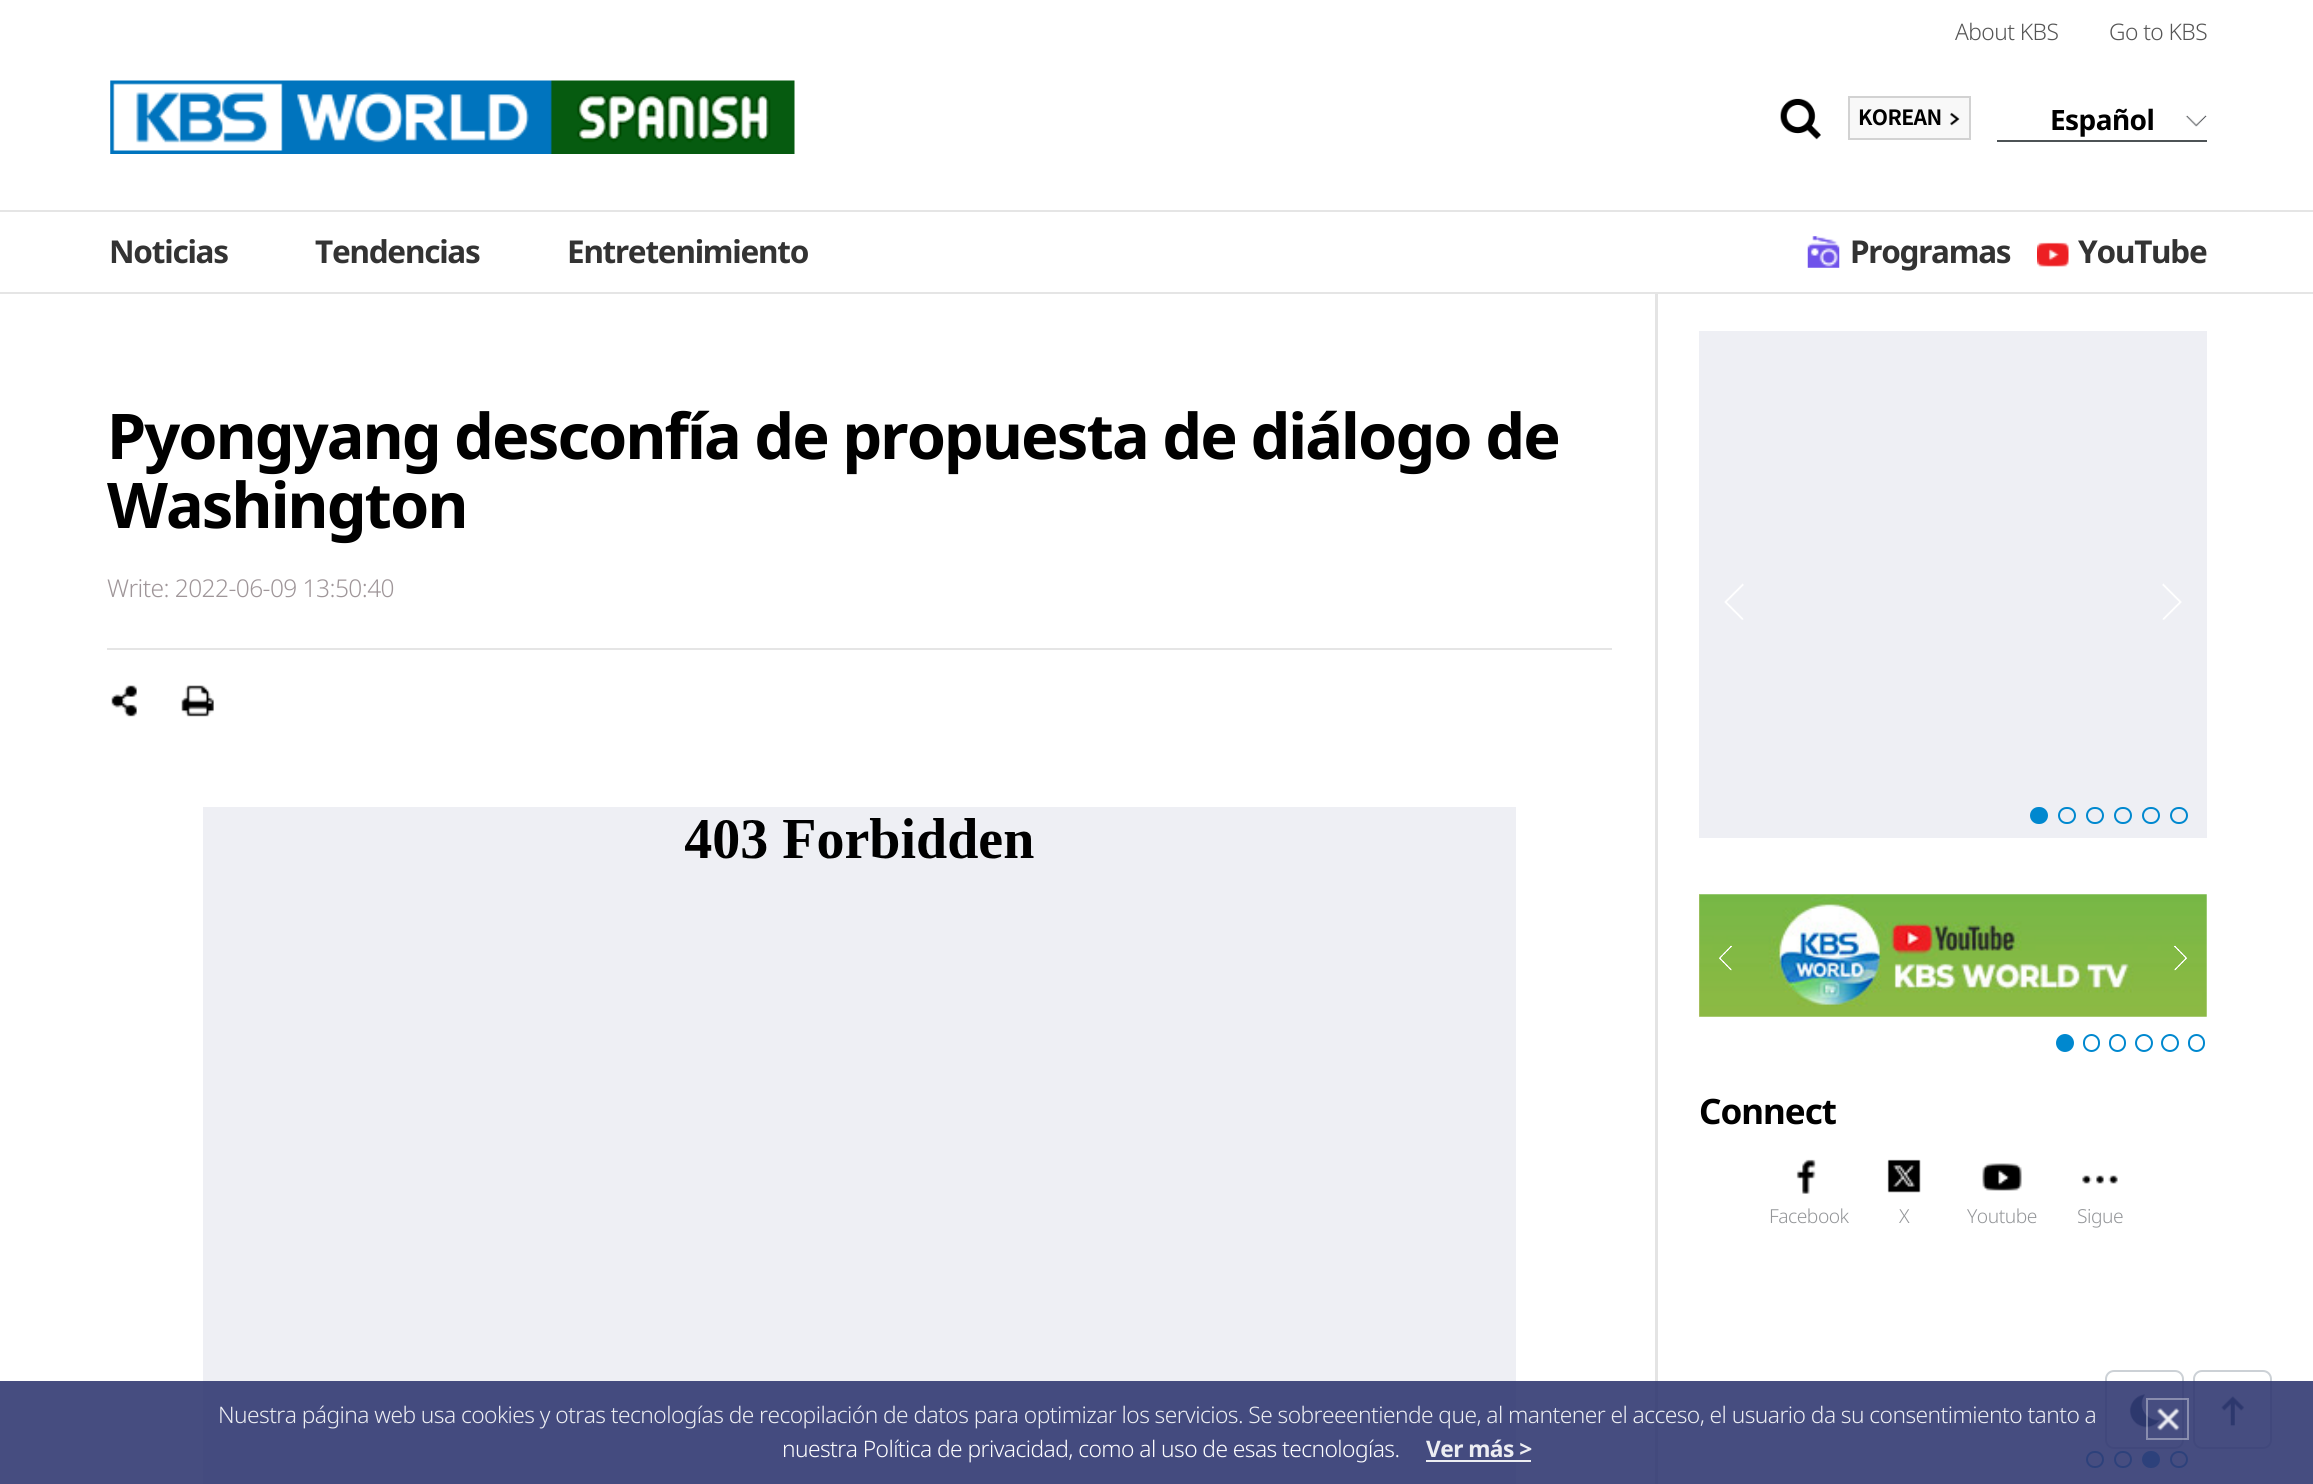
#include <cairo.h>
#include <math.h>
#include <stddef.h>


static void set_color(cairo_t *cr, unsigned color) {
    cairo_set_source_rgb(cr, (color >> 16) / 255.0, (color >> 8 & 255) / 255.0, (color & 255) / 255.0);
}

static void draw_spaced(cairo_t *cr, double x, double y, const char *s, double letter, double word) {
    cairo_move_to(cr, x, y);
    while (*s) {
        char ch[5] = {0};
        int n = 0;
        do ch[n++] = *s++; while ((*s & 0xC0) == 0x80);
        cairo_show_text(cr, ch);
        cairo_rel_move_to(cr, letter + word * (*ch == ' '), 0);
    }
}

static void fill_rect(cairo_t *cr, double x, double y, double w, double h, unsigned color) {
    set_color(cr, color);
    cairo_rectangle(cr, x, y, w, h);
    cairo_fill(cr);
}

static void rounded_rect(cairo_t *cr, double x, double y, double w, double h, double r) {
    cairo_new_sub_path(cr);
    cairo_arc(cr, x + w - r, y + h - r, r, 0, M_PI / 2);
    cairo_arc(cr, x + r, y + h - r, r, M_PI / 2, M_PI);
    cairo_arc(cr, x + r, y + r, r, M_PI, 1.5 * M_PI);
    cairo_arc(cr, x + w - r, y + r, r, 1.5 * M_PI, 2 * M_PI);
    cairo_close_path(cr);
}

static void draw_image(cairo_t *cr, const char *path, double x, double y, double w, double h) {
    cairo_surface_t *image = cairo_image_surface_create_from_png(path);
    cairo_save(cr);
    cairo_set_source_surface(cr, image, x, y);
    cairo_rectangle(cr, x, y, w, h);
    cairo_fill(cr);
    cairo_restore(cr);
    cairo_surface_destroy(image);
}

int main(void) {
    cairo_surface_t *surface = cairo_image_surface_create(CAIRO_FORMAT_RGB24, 2313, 1484);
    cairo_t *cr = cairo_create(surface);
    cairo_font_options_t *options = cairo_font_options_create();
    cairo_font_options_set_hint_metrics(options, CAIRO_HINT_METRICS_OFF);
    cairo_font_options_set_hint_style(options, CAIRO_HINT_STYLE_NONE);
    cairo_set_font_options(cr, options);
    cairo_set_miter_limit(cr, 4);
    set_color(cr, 0xFFFFFF);
    cairo_paint(cr);
    fill_rect(cr, 1655, 294, 3, 1190, 0xE4E4E4);
    cairo_select_font_face(cr, "Noto Sans Light", CAIRO_FONT_SLANT_NORMAL, CAIRO_FONT_WEIGHT_NORMAL);
    cairo_set_font_size(cr, 22.75);
    set_color(cr, 0x555555);
    draw_spaced(cr, 1955, 40, "About KBS", -0.56, 0);
    draw_spaced(cr, 2109, 40, "Go to KBS", -0.56, 0);
    draw_image(cr, "assets/img1.png", 110, 80, 685, 74);
    draw_image(cr, "assets/img2.png", 1780, 98, 41, 42);
    fill_rect(cr, 1850, 98, 119, 40, 0xF8F8F8);
    draw_image(cr, "assets/img3.png", 1950, 112, 10, 14);
    cairo_rectangle(cr, 1849, 97, 121, 42);
    set_color(cr, 0xD2D2D2);
    cairo_stroke(cr);
    cairo_select_font_face(cr, "Noto Sans KR", CAIRO_FONT_SLANT_NORMAL, CAIRO_FONT_WEIGHT_BOLD);
    cairo_set_font_size(cr, 21);
    set_color(cr, 0x000000);
    draw_spaced(cr, 1858, 125, "KOREAN", -0.56, 0);
    draw_image(cr, "assets/img4.png", 2185, 115, 22, 12);
    fill_rect(cr, 1997, 140, 210, 2, 0x4D5356);
    cairo_select_font_face(cr, "Noto Sans", CAIRO_FONT_SLANT_NORMAL, CAIRO_FONT_WEIGHT_BOLD);
    cairo_set_font_size(cr, 28);
    set_color(cr, 0x000000);
    draw_spaced(cr, 2050, 130, "Español", -0.56, 0);
    fill_rect(cr, 0, 210, 2313, 2, 0xE5E5E5);
    fill_rect(cr, 0, 292, 2313, 2, 0xE5E5E5);
    cairo_set_font_size(cr, 31.5);
    set_color(cr, 0x333333);
    draw_spaced(cr, 109, 263, "Noticias", -1.25, 0);
    draw_spaced(cr, 315, 263, "Tendencias", -1.25, 0);
    draw_spaced(cr, 567, 263, "Entretenimiento", -1.25, 0);
    draw_image(cr, "assets/img5.png", 1807, 236, 33, 32);
    draw_spaced(cr, 1850, 263, "Programas", -1.25, 0);
    draw_image(cr, "assets/img6.png", 2037, 242, 32, 25);
    draw_spaced(cr, 2078, 263, "YouTube", -1.25, 0);
    rounded_rect(cr, 2106, 1371, 77, 77, 8);
    set_color(cr, 0xCCD1D6);
    cairo_stroke(cr);
    draw_image(cr, "assets/img7.png", 2129, 1394, 31, 34);
    rounded_rect(cr, 2194, 1371, 77, 77, 8);
    cairo_stroke(cr);
    draw_image(cr, "assets/img8.png", 2221, 1396, 24, 31);
    fill_rect(cr, 107, 648, 1505, 2, 0xE5E5E5);
    cairo_set_font_size(cr, 63);
    set_color(cr, 0x000000);
    draw_spaced(cr, 107, 459, "Pyongyang desconfía de propuesta de diálogo de", -1.9, 0);
    draw_spaced(cr, 107, 528, "Washington", -1.9, 0);
    cairo_select_font_face(cr, "Noto Sans Light", CAIRO_FONT_SLANT_NORMAL, CAIRO_FONT_WEIGHT_NORMAL);
    cairo_set_font_size(cr, 24.5);
    set_color(cr, 0x9F9699);
    draw_spaced(cr, 107, 597, "Write: 2022-06-09 13:50:40", -0.56, 0);
    draw_image(cr, "assets/img9.png", 111, 685, 26, 32);
    draw_image(cr, "assets/img10.png", 181, 685, 33, 32);
    fill_rect(cr, 203, 807, 1313, 677, 0xEEEFF4);
    draw_image(cr, "assets/img11.png", 685, 818, 349, 41);
    fill_rect(cr, 1699, 331, 508, 507, 0xEEEFF4);
    draw_image(cr, "assets/img12.png", 1724, 583, 20, 37);
    draw_image(cr, "assets/img13.png", 2162, 583, 20, 37);
    set_color(cr, 0x0088CF);
    rounded_rect(cr, 2031, 808, 16, 15, 7.5);
    cairo_fill_preserve(cr);
    cairo_stroke(cr);
    rounded_rect(cr, 2059, 808, 16, 15, 7.5);
    cairo_stroke(cr);
    rounded_rect(cr, 2087, 808, 16, 15, 7.5);
    cairo_stroke(cr);
    rounded_rect(cr, 2115, 808, 16, 15, 7.5);
    cairo_stroke(cr);
    rounded_rect(cr, 2143, 808, 16, 15, 7.5);
    cairo_stroke(cr);
    rounded_rect(cr, 2171, 808, 16, 15, 7.5);
    cairo_stroke(cr);
    draw_image(cr, "assets/img14.png", 1699, 894, 1, 123);
    draw_image(cr, "assets/img15.png", 1699, 894, 508, 123);
    cairo_arc(cr, 2065, 1043, 8, 0, 2 * M_PI);
    cairo_fill_preserve(cr);
    cairo_stroke(cr);
    rounded_rect(cr, 2084, 1035, 15, 16, 7.5);
    cairo_stroke(cr);
    rounded_rect(cr, 2110, 1035, 15, 16, 7.5);
    cairo_stroke(cr);
    cairo_arc(cr, 2144, 1043, 8, 0, 2 * M_PI);
    cairo_stroke(cr);
    cairo_arc(cr, 2170, 1043, 8, 0, 2 * M_PI);
    cairo_stroke(cr);
    rounded_rect(cr, 2189, 1035, 15, 16, 7.5);
    cairo_stroke(cr);
    draw_image(cr, "assets/img16.png", 1719, 945, 13, 26);
    draw_image(cr, "assets/img17.png", 2174, 945, 13, 26);
    cairo_select_font_face(cr, "Noto Sans", CAIRO_FONT_SLANT_NORMAL, CAIRO_FONT_WEIGHT_BOLD);
    cairo_set_font_size(cr, 35);
    set_color(cr, 0x000000);
    draw_spaced(cr, 1699, 1124, "Connect", -1, 0);
    draw_image(cr, "assets/img18.png", 1796, 1159, 20, 35);
    cairo_select_font_face(cr, "Noto Sans Light", CAIRO_FONT_SLANT_NORMAL, CAIRO_FONT_WEIGHT_NORMAL);
    cairo_set_font_size(cr, 19.25);
    set_color(cr, 0x949699);
    draw_spaced(cr, 1769, 1223, "Facebook", -0.5, 0);
    draw_image(cr, "assets/img19.png", 1887, 1159, 34, 34);
    draw_spaced(cr, 1899, 1223, "X", -0.5, 0);
    draw_image(cr, "assets/img20.png", 1982, 1163, 40, 28);
    draw_spaced(cr, 1967, 1223, "Youtube", -0.5, 0);
    draw_image(cr, "assets/img21.png", 2082, 1175, 36, 9);
    draw_spaced(cr, 2077, 1223, "Sigue", -0.5, 0);
    rounded_rect(cr, 2087, 1452, 16, 15, 7.5);
    set_color(cr, 0x0088CF);
    cairo_stroke(cr);
    rounded_rect(cr, 2115, 1452, 16, 15, 7.5);
    cairo_stroke(cr);
    rounded_rect(cr, 2143, 1452, 16, 15, 7.5);
    cairo_fill_preserve(cr);
    cairo_stroke(cr);
    rounded_rect(cr, 2171, 1452, 16, 15, 7.5);
    cairo_stroke(cr);
    cairo_set_source_rgba(cr, 0.196, 0.227, 0.451, 0.9);
    cairo_rectangle(cr, 0, 1381, 2313, 103);
    cairo_fill(cr);
    cairo_set_font_size(cr, 22.75);
    set_color(cr, 0xECEDF2);
    draw_spaced(cr, 218, 1423, "Nuestra página web usa cookies y otras tecnologías de recopilación de datos para optimizar los servicios. Se sobreeentiende que, al mantener el acceso, el usuario da su consentimiento tanto a", -0.56, 0);
    set_color(cr, 0xFDFDFE);
    draw_spaced(cr, 782, 1457, "nuestra Política de privacidad, como al uso de esas tecnologías.", -0.56, 0);
    cairo_select_font_face(cr, "Noto Sans", CAIRO_FONT_SLANT_NORMAL, CAIRO_FONT_WEIGHT_BOLD);
    set_color(cr, 0xECEDF2);
    draw_spaced(cr, 1426, 1457, "Ver más >", -0.56, 0);
    fill_rect(cr, 1426, 1460, 105, 2, 0xECEDF2);
    draw_image(cr, "assets/img22.png", 2157, 1408, 23, 23);
    cairo_rectangle(cr, 2147, 1399, 41, 40);
    cairo_set_source_rgba(cr, 1, 1, 1, 0.36);
    cairo_stroke(cr);
    cairo_surface_write_to_png(surface, "output.png");
    cairo_font_options_destroy(options);
    cairo_destroy(cr);
    cairo_surface_destroy(surface);
    return 0;
}
